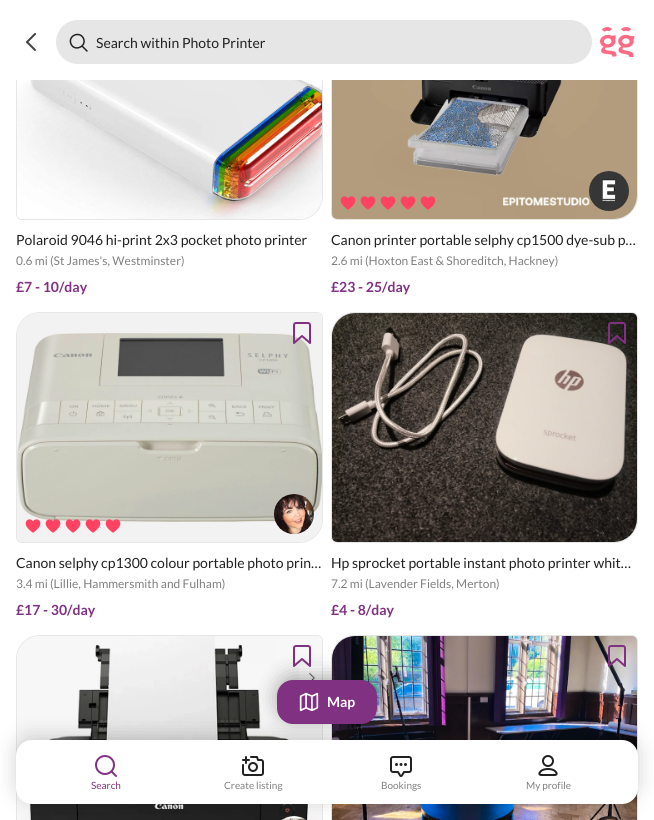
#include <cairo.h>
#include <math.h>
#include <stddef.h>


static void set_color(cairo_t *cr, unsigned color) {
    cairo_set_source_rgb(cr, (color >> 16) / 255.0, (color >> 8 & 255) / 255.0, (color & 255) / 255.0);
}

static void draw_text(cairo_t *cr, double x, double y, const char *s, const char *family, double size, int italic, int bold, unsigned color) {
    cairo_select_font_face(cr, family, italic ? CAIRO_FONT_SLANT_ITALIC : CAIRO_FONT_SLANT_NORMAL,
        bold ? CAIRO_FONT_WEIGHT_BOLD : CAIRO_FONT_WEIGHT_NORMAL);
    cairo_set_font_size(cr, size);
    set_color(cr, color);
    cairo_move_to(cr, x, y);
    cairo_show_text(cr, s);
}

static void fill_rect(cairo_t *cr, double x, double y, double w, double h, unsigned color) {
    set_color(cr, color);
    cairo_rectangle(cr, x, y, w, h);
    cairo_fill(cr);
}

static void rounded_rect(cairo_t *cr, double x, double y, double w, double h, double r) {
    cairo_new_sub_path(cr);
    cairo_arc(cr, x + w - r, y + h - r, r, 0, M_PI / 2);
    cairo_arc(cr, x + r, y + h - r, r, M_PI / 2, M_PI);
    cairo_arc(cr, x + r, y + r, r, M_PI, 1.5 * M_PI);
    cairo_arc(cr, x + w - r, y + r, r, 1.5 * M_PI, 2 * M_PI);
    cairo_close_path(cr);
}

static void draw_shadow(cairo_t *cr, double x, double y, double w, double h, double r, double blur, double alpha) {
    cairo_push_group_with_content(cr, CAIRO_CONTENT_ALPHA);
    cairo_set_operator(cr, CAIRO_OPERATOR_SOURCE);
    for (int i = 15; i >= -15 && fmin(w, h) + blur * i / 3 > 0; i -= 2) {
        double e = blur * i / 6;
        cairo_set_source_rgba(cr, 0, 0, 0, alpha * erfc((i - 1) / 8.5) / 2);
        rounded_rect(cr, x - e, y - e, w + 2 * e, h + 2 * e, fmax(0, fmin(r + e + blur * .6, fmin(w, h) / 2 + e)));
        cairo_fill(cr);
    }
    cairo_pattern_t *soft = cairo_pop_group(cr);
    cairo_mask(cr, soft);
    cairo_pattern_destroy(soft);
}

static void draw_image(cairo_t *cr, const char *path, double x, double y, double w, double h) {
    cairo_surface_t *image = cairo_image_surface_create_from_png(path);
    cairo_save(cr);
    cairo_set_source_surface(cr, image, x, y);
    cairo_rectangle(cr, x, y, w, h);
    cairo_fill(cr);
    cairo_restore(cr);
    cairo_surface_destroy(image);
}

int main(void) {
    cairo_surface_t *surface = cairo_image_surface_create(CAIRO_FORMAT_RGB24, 654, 820);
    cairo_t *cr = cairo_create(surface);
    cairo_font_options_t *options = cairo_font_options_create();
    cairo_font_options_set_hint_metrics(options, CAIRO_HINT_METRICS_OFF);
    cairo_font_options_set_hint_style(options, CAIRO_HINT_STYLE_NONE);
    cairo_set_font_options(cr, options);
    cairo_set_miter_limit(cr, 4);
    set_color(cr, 0xFFFFFF);
    cairo_paint(cr);
    cairo_new_path(cr);
    cairo_move_to(cr, 40, -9.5);
    cairo_line_to(cr, 317, -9.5);
    cairo_curve_to(cr, 320, -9.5, 322.5, -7, 322.5, -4);
    cairo_line_to(cr, 322.5, 196);
    cairo_curve_to(cr, 322.5, 209, 312, 219.5, 299, 219.5);
    cairo_line_to(cr, 22, 219.5);
    cairo_curve_to(cr, 19, 219.5, 16.5, 217, 16.5, 214);
    cairo_line_to(cr, 16.5, 14);
    cairo_curve_to(cr, 16.5, 1, 27, -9.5, 40, -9.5);
    cairo_close_path(cr);
    set_color(cr, 0xE6E6E6);
    cairo_set_line_width(cr, 1);
    cairo_stroke(cr);
    cairo_new_path(cr);
    cairo_move_to(cr, 355, -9.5);
    cairo_line_to(cr, 632, -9.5);
    cairo_curve_to(cr, 635, -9.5, 637.5, -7, 637.5, -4);
    cairo_line_to(cr, 637.5, 196);
    cairo_curve_to(cr, 637.5, 209, 627, 219.5, 614, 219.5);
    cairo_line_to(cr, 337, 219.5);
    cairo_curve_to(cr, 334, 219.5, 331.5, 217, 331.5, 214);
    cairo_line_to(cr, 331.5, 14);
    cairo_curve_to(cr, 331.5, 1, 342, -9.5, 355, -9.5);
    cairo_close_path(cr);
    cairo_stroke(cr);
    fill_rect(cr, 16, 0, 622, 80, 0xFFFFFF);
    draw_image(cr, "assets/img1.png", 26, 33, 10, 18);
    set_color(cr, 0xE6E6E6);
    rounded_rect(cr, 56, 20, 536, 44, 22);
    cairo_fill(cr);
    cairo_new_path(cr);
    cairo_move_to(cr, 71, 44);
    cairo_curve_to(cr, 74.5, 52, 87, 46.5, 83.5, 38.5);
    cairo_curve_to(cr, 80, 30.5, 67.5, 35.5, 71, 44);
    cairo_close_path(cr);
    cairo_move_to(cr, 82, 46);
    cairo_line_to(cr, 87, 51);
    set_color(cr, 0x212121);
    cairo_set_line_width(cr, 1.5);
    cairo_set_line_cap(cr, CAIRO_LINE_CAP_ROUND);
    cairo_set_line_join(cr, CAIRO_LINE_JOIN_ROUND);
    cairo_stroke(cr);
    draw_text(cr, 96, 48, "Search within Photo Printer", "Lato", 14, 0, 0, 0x212121);
    draw_image(cr, "assets/img2.png", 600, 27, 35, 30);
    draw_image(cr, "assets/img3.png", 17, 80, 305, 139);
    draw_text(cr, 16, 245, "Polaroid 9046 hi-print 2x3 pocket photo printer", "Lato", 14, 0, 0, 0x212121);
    draw_text(cr, 16, 265, "0.6 mi (St James's, Westminster)", "Lato", 12, 0, 0, 0x808080);
    draw_text(cr, 16, 292, "£7 - 10/day", "Lato", 14, 0, 1, 0x813181);
    draw_image(cr, "assets/img4.png", 332, 80, 305, 139);
    draw_image(cr, "assets/img5.png", 340, 196, 16, 14);
    draw_image(cr, "assets/img5.png", 360, 196, 16, 14);
    draw_image(cr, "assets/img5.png", 380, 196, 16, 14);
    draw_image(cr, "assets/img5.png", 400, 196, 16, 14);
    draw_image(cr, "assets/img6.png", 420, 196, 15, 14);
    draw_image(cr, "assets/img7.png", 589, 171, 40, 40);
    draw_text(cr, 331, 245, "Canon printer portable selphy cp1500 dye-sub p…", "Lato", 14, 0, 0, 0x212121);
    draw_text(cr, 331, 265, "2.6 mi (Hoxton East & Shoreditch, Hackney)", "Lato", 12, 0, 0, 0x808080);
    draw_text(cr, 331, 292, "£23 - 25/day", "Lato", 14, 0, 1, 0x813181);
    cairo_new_path(cr);
    cairo_move_to(cr, 40, 312.5);
    cairo_line_to(cr, 317, 312.5);
    cairo_curve_to(cr, 320, 312.5, 322.5, 315, 322.5, 318);
    cairo_line_to(cr, 322.5, 519);
    cairo_curve_to(cr, 322.5, 532, 312, 542.5, 299, 542.5);
    cairo_line_to(cr, 22, 542.5);
    cairo_curve_to(cr, 19, 542.5, 16.5, 540, 16.5, 537);
    cairo_line_to(cr, 16.5, 336);
    cairo_curve_to(cr, 16.5, 323, 27, 312.5, 40, 312.5);
    cairo_close_path(cr);
    set_color(cr, 0xE6E6E6);
    cairo_set_line_width(cr, 1);
    cairo_set_line_cap(cr, CAIRO_LINE_CAP_BUTT);
    cairo_set_line_join(cr, CAIRO_LINE_JOIN_MITER);
    cairo_stroke(cr);
    draw_image(cr, "assets/img8.png", 17, 313, 305, 229);
    draw_image(cr, "assets/img9.png", 293, 322, 18, 22);
    draw_image(cr, "assets/img10.png", 25, 519, 16, 14);
    draw_image(cr, "assets/img11.png", 45, 519, 16, 14);
    draw_image(cr, "assets/img12.png", 65, 519, 16, 14);
    draw_image(cr, "assets/img13.png", 85, 519, 16, 14);
    draw_image(cr, "assets/img14.png", 105, 519, 16, 14);
    draw_image(cr, "assets/img15.png", 274, 494, 40, 40);
    draw_text(cr, 16, 568, "Canon selphy cp1300 colour portable photo prin…", "Lato", 14, 0, 0, 0x212121);
    draw_text(cr, 16, 588, "3.4 mi (Lillie, Hammersmith and Fulham)", "Lato", 12, 0, 0, 0x808080);
    draw_text(cr, 16, 615, "£17 - 30/day", "Lato", 14, 0, 1, 0x813181);
    cairo_new_path(cr);
    cairo_move_to(cr, 355, 312.5);
    cairo_line_to(cr, 632, 312.5);
    cairo_curve_to(cr, 635, 312.5, 637.5, 315, 637.5, 318);
    cairo_line_to(cr, 637.5, 519);
    cairo_curve_to(cr, 637.5, 532, 627, 542.5, 614, 542.5);
    cairo_line_to(cr, 337, 542.5);
    cairo_curve_to(cr, 334, 542.5, 331.5, 540, 331.5, 537);
    cairo_line_to(cr, 331.5, 336);
    cairo_curve_to(cr, 331.5, 323, 342, 312.5, 355, 312.5);
    cairo_close_path(cr);
    set_color(cr, 0xE6E6E6);
    cairo_stroke(cr);
    draw_image(cr, "assets/img16.png", 332, 313, 305, 229);
    draw_image(cr, "assets/img17.png", 608, 322, 18, 22);
    draw_text(cr, 331, 568, "Hp sprocket portable instant photo printer whit…", "Lato", 14, 0, 0, 0x212121);
    draw_text(cr, 331, 588, "7.2 mi (Lavender Fields, Merton)", "Lato", 12, 0, 0, 0x808080);
    draw_text(cr, 331, 615, "£4 - 8/day", "Lato", 14, 0, 1, 0x813181);
    cairo_new_path(cr);
    cairo_move_to(cr, 40, 635.5);
    cairo_line_to(cr, 317, 635.5);
    cairo_curve_to(cr, 320, 635.5, 322.5, 638, 322.5, 641);
    cairo_line_to(cr, 322.5, 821);
    cairo_curve_to(cr, 322.5, 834, 312, 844.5, 299, 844.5);
    cairo_line_to(cr, 22, 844.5);
    cairo_curve_to(cr, 19, 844.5, 16.5, 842, 16.5, 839);
    cairo_line_to(cr, 16.5, 659);
    cairo_curve_to(cr, 16.5, 646, 27, 635.5, 40, 635.5);
    cairo_close_path(cr);
    set_color(cr, 0xE6E6E6);
    cairo_stroke(cr);
    draw_image(cr, "assets/img18.png", 17, 636, 305, 184);
    draw_image(cr, "assets/img19.png", 293, 645, 18, 22);
    draw_image(cr, "assets/img20.png", 281, 816, 26, 4);
    cairo_new_path(cr);
    cairo_move_to(cr, 355, 635.5);
    cairo_line_to(cr, 632, 635.5);
    cairo_curve_to(cr, 635, 635.5, 637.5, 638, 637.5, 641);
    cairo_line_to(cr, 637.5, 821);
    cairo_curve_to(cr, 637.5, 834, 627, 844.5, 614, 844.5);
    cairo_line_to(cr, 337, 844.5);
    cairo_curve_to(cr, 334, 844.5, 331.5, 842, 331.5, 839);
    cairo_line_to(cr, 331.5, 659);
    cairo_curve_to(cr, 331.5, 646, 342, 635.5, 355, 635.5);
    cairo_close_path(cr);
    cairo_stroke(cr);
    draw_image(cr, "assets/img21.png", 332, 636, 305, 184);
    draw_image(cr, "assets/img22.png", 608, 645, 18, 22);
    draw_image(cr, "assets/img23.png", 596, 816, 25, 4);
    set_color(cr, 0x1A1A1A);
    draw_shadow(cr, 16, 736, 622, 64, 16, 10, 0.2);
    set_color(cr, 0xFFFFFF);
    rounded_rect(cr, 16, 740, 622, 64, 16);
    cairo_fill(cr);
    set_color(cr, 0x1A1A1A);
    draw_shadow(cr, 277, 676, 100, 44, 16, 10, 0.2);
    draw_shadow(cr, 277, 676, 100, 44, 16, 10, 0.2);
    set_color(cr, 0x813181);
    rounded_rect(cr, 277, 680, 100, 44, 16);
    cairo_fill(cr);
    draw_image(cr, "assets/img24.png", 299, 692, 20, 20);
    draw_text(cr, 327, 707, "Map", "Lato", 14, 0, 1, 0xFFFFFF);
    draw_image(cr, "assets/img25.png", 95, 755, 22, 22);
    draw_text(cr, 91, 789, "Search", "Lato", 10, 0, 0, 0x813181);
    draw_image(cr, "assets/img26.png", 242, 756, 22, 20);
    draw_text(cr, 224, 789, "Create listing", "Lato", 10, 0, 0, 0x808080);
    draw_image(cr, "assets/img27.png", 390, 756, 22, 21);
    draw_text(cr, 381, 789, "Bookings", "Lato", 10, 0, 0, 0x808080);
    draw_image(cr, "assets/img28.png", 538, 755, 20, 21);
    draw_text(cr, 526, 789, "My profile", "Lato", 10, 0, 0, 0x808080);
    cairo_surface_write_to_png(surface, "output.png");
    cairo_font_options_destroy(options);
    cairo_destroy(cr);
    cairo_surface_destroy(surface);
    return 0;
}
